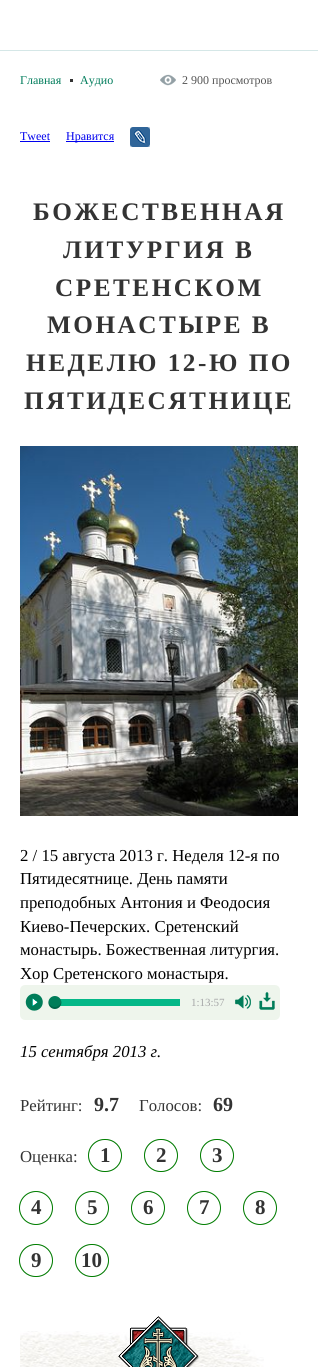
#include <cairo.h>
#include <math.h>
#include <stddef.h>


static void set_color(cairo_t *cr, unsigned color) {
    cairo_set_source_rgb(cr, (color >> 16) / 255.0, (color >> 8 & 255) / 255.0, (color & 255) / 255.0);
}

static void draw_text(cairo_t *cr, double x, double y, const char *s, const char *family, double size, int italic, int bold, unsigned color) {
    cairo_select_font_face(cr, family, italic ? CAIRO_FONT_SLANT_ITALIC : CAIRO_FONT_SLANT_NORMAL,
        bold ? CAIRO_FONT_WEIGHT_BOLD : CAIRO_FONT_WEIGHT_NORMAL);
    cairo_set_font_size(cr, size);
    set_color(cr, color);
    cairo_move_to(cr, x, y);
    cairo_show_text(cr, s);
}

static void draw_spaced(cairo_t *cr, double x, double y, const char *s, double letter, double word) {
    cairo_move_to(cr, x, y);
    while (*s) {
        char ch[5] = {0};
        int n = 0;
        do ch[n++] = *s++; while ((*s & 0xC0) == 0x80);
        cairo_show_text(cr, ch);
        cairo_rel_move_to(cr, letter + word * (*ch == ' '), 0);
    }
}

static void fill_rect(cairo_t *cr, double x, double y, double w, double h, unsigned color) {
    set_color(cr, color);
    cairo_rectangle(cr, x, y, w, h);
    cairo_fill(cr);
}

static void rounded_rect(cairo_t *cr, double x, double y, double w, double h, double r) {
    cairo_new_sub_path(cr);
    cairo_arc(cr, x + w - r, y + h - r, r, 0, M_PI / 2);
    cairo_arc(cr, x + r, y + h - r, r, M_PI / 2, M_PI);
    cairo_arc(cr, x + r, y + r, r, M_PI, 1.5 * M_PI);
    cairo_arc(cr, x + w - r, y + r, r, 1.5 * M_PI, 2 * M_PI);
    cairo_close_path(cr);
}

static void draw_shadow(cairo_t *cr, double x, double y, double w, double h, double r, double blur, double alpha) {
    cairo_push_group_with_content(cr, CAIRO_CONTENT_ALPHA);
    cairo_set_operator(cr, CAIRO_OPERATOR_SOURCE);
    for (int i = 15; i >= -15 && fmin(w, h) + blur * i / 3 > 0; i -= 2) {
        double e = blur * i / 6;
        cairo_set_source_rgba(cr, 0, 0, 0, alpha * erfc((i - 1) / 8.5) / 2);
        rounded_rect(cr, x - e, y - e, w + 2 * e, h + 2 * e, fmax(0, fmin(r + e + blur * .6, fmin(w, h) / 2 + e)));
        cairo_fill(cr);
    }
    cairo_pattern_t *soft = cairo_pop_group(cr);
    cairo_mask(cr, soft);
    cairo_pattern_destroy(soft);
}

static void draw_image(cairo_t *cr, const char *path, double x, double y, double w, double h) {
    cairo_surface_t *image = cairo_image_surface_create_from_png(path);
    cairo_save(cr);
    cairo_set_source_surface(cr, image, x, y);
    cairo_rectangle(cr, x, y, w, h);
    cairo_fill(cr);
    cairo_restore(cr);
    cairo_surface_destroy(image);
}

int main(void) {
    cairo_surface_t *surface = cairo_image_surface_create(CAIRO_FORMAT_RGB24, 318, 1367);
    cairo_t *cr = cairo_create(surface);
    cairo_font_options_t *options = cairo_font_options_create();
    cairo_font_options_set_hint_metrics(options, CAIRO_HINT_METRICS_OFF);
    cairo_font_options_set_hint_style(options, CAIRO_HINT_STYLE_NONE);
    cairo_set_font_options(cr, options);
    cairo_set_miter_limit(cr, 4);
    set_color(cr, 0xFFFFFF);
    cairo_paint(cr);
    draw_image(cr, "assets/img1.png", 0, 50, 318, 1);
    draw_text(cr, 20, 84, "Главная", "Liberation Serif", 12, 0, 0, 0x007C5B);
    draw_text(cr, 80, 84, "Аудио", "Liberation Serif", 12, 0, 0, 0x007C5B);
    fill_rect(cr, 70, 79, 3, 3, 0x333333);
    draw_image(cr, "assets/img2.png", 160, 74, 16, 12);
    draw_text(cr, 182, 84, "2 900 просмотров", "Liberation Serif", 12, 0, 0, 0x555555);
    draw_text(cr, 20, 140, "Tweet", "Liberation Serif", 12, 0, 0, 0x0000EE);
    fill_rect(cr, 20, 141, 30, 1, 0x0000EE);
    fill_rect(cr, 66, 141, 48, 1, 0x0000EE);
    draw_text(cr, 66, 140, "Нравится", "Liberation Serif", 12, 0, 0, 0x0000EE);
    draw_image(cr, "assets/img3.png", 130, 127, 20, 20);
    cairo_select_font_face(cr, "Liberation Serif", CAIRO_FONT_SLANT_NORMAL, CAIRO_FONT_WEIGHT_BOLD);
    cairo_set_font_size(cr, 25.25);
    set_color(cr, 0x333333);
    draw_spaced(cr, 33, 220, "БОЖЕСТВЕННАЯ", 2.5, 0);
    draw_spaced(cr, 63, 258, "ЛИТУРГИЯ В", 2.5, 0);
    draw_spaced(cr, 55, 296, "СРЕТЕНСКОМ", 2.5, 0);
    draw_spaced(cr, 47, 333, "МОНАСТЫРЕ В", 2.5, 0);
    draw_spaced(cr, 26, 371, "НЕДЕЛЮ 12-Ю ПО", 2.5, 0);
    draw_spaced(cr, 24, 409, "ПЯТИДЕСЯТНИЦЕ", 2.5, 0);
    draw_image(cr, "assets/img4.png", 20, 446, 278, 370);
    draw_text(cr, 20, 861, "2 / 15 августа 2013 г. Неделя 12-я по", "Liberation Serif", 16.75, 0, 0, 0x000000);
    draw_text(cr, 20, 884, "Пятидесятнице. День памяти", "Liberation Serif", 16.75, 0, 0, 0x000000);
    draw_text(cr, 20, 908, "преподобных Антония и Феодосия", "Liberation Serif", 16.75, 0, 0, 0x000000);
    draw_text(cr, 20, 932, "Киево-Печерских. Сретенский", "Liberation Serif", 16.75, 0, 0, 0x000000);
    draw_text(cr, 20, 955, "монастырь. Божественная литургия.", "Liberation Serif", 16.75, 0, 0, 0x000000);
    draw_text(cr, 20, 979, "Хор Сретенского монастыря.", "Liberation Serif", 16.75, 0, 0, 0x000000);
    set_color(cr, 0xEEF5EC);
    rounded_rect(cr, 22.5, 987.5, 255, 30, 2.5);
    cairo_fill_preserve(cr);
    cairo_set_line_width(cr, 5);
    cairo_stroke(cr);
    draw_image(cr, "assets/img5.png", 25, 993, 18, 18);
    fill_rect(cr, 55, 999, 125, 7, 0x04B888);
    draw_image(cr, "assets/img6.png", 48, 996, 14, 13);
    draw_text(cr, 191, 1006, "1:13:57", "Liberation Serif", 11, 0, 0, 0xA6A7A8);
    draw_image(cr, "assets/img7.png", 235, 995, 16, 14);
    draw_image(cr, "assets/img8.png", 259, 992, 16, 18);
    draw_text(cr, 20, 1057, "15 сентября 2013 г.", "Liberation Serif", 16.75, 1, 0, 0x000000);
    draw_text(cr, 20, 1111, "Рейтинг:", "Liberation Serif", 16.75, 0, 0, 0x333333);
    draw_text(cr, 94, 1111, "9.7", "Liberation Serif", 20, 0, 1, 0x333333);
    draw_text(cr, 139, 1111, "Голосов:", "Liberation Serif", 16.75, 0, 0, 0x333333);
    draw_text(cr, 213, 1111, "69", "Liberation Serif", 20, 0, 1, 0x333333);
    draw_text(cr, 20, 1162, "Оценка:", "Liberation Serif", 16.75, 0, 0, 0x333333);
    cairo_save(cr);
    cairo_set_fill_rule(cr, CAIRO_FILL_RULE_EVEN_ODD);
    cairo_new_path(cr);
    cairo_move_to(cr, 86, 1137);
    cairo_line_to(cr, 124, 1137);
    cairo_line_to(cr, 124, 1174);
    cairo_line_to(cr, 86, 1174);
    cairo_close_path(cr);
    cairo_move_to(cr, 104.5, 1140);
    cairo_line_to(cr, 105.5, 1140);
    cairo_curve_to(cr, 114, 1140, 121, 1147, 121, 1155.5);
    cairo_curve_to(cr, 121, 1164, 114, 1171, 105.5, 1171);
    cairo_line_to(cr, 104.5, 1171);
    cairo_curve_to(cr, 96, 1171, 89, 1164, 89, 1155.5);
    cairo_curve_to(cr, 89, 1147, 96, 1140, 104.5, 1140);
    cairo_close_path(cr);
    cairo_clip(cr);
    set_color(cr, 0x333333);
    draw_shadow(cr, 89, 1140, 32, 31, 15.5, 0.5, 1);
    cairo_restore(cr);
    rounded_rect(cr, 88.5, 1139.5, 33, 32, 16);
    set_color(cr, 0x008000);
    cairo_set_line_width(cr, 1);
    cairo_stroke(cr);
    draw_text(cr, 100, 1162, "1", "Liberation Serif", 21, 0, 1, 0x333333);
    cairo_save(cr);
    cairo_set_fill_rule(cr, CAIRO_FILL_RULE_EVEN_ODD);
    cairo_new_path(cr);
    cairo_move_to(cr, 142, 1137);
    cairo_line_to(cr, 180, 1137);
    cairo_line_to(cr, 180, 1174);
    cairo_line_to(cr, 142, 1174);
    cairo_close_path(cr);
    cairo_move_to(cr, 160.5, 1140);
    cairo_line_to(cr, 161.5, 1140);
    cairo_curve_to(cr, 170, 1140, 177, 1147, 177, 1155.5);
    cairo_curve_to(cr, 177, 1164, 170, 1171, 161.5, 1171);
    cairo_line_to(cr, 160.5, 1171);
    cairo_curve_to(cr, 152, 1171, 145, 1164, 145, 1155.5);
    cairo_curve_to(cr, 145, 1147, 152, 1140, 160.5, 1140);
    cairo_close_path(cr);
    cairo_clip(cr);
    set_color(cr, 0x333333);
    draw_shadow(cr, 145, 1140, 32, 31, 15.5, 0.5, 1);
    cairo_restore(cr);
    rounded_rect(cr, 144.5, 1139.5, 33, 32, 16);
    set_color(cr, 0x008000);
    cairo_stroke(cr);
    draw_text(cr, 156, 1162, "2", "Liberation Serif", 21, 0, 1, 0x333333);
    cairo_save(cr);
    cairo_set_fill_rule(cr, CAIRO_FILL_RULE_EVEN_ODD);
    cairo_new_path(cr);
    cairo_move_to(cr, 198, 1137);
    cairo_line_to(cr, 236, 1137);
    cairo_line_to(cr, 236, 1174);
    cairo_line_to(cr, 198, 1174);
    cairo_close_path(cr);
    cairo_move_to(cr, 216.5, 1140);
    cairo_line_to(cr, 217.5, 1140);
    cairo_curve_to(cr, 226, 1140, 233, 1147, 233, 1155.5);
    cairo_curve_to(cr, 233, 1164, 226, 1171, 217.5, 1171);
    cairo_line_to(cr, 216.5, 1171);
    cairo_curve_to(cr, 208, 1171, 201, 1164, 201, 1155.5);
    cairo_curve_to(cr, 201, 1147, 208, 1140, 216.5, 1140);
    cairo_close_path(cr);
    cairo_clip(cr);
    set_color(cr, 0x333333);
    draw_shadow(cr, 201, 1140, 32, 31, 15.5, 0.5, 1);
    cairo_restore(cr);
    rounded_rect(cr, 200.5, 1139.5, 33, 32, 16);
    set_color(cr, 0x008000);
    cairo_stroke(cr);
    draw_text(cr, 212, 1162, "3", "Liberation Serif", 21, 0, 1, 0x333333);
    cairo_save(cr);
    cairo_set_fill_rule(cr, CAIRO_FILL_RULE_EVEN_ODD);
    cairo_new_path(cr);
    cairo_move_to(cr, 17, 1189);
    cairo_line_to(cr, 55, 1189);
    cairo_line_to(cr, 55, 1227);
    cairo_line_to(cr, 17, 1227);
    cairo_close_path(cr);
    cairo_move_to(cr, 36, 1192);
    cairo_curve_to(cr, 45, 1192, 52, 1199, 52, 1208);
    cairo_curve_to(cr, 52, 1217, 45, 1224, 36, 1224);
    cairo_curve_to(cr, 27, 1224, 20, 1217, 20, 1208);
    cairo_curve_to(cr, 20, 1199, 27, 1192, 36, 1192);
    cairo_close_path(cr);
    cairo_clip(cr);
    set_color(cr, 0x333333);
    draw_shadow(cr, 20, 1192, 32, 32, 16, 0.5, 1);
    cairo_restore(cr);
    cairo_arc(cr, 36, 1208, 16.5, 0, 2 * M_PI);
    set_color(cr, 0x008000);
    cairo_stroke(cr);
    draw_text(cr, 31, 1214, "4", "Liberation Serif", 21, 0, 1, 0x333333);
    cairo_save(cr);
    cairo_set_fill_rule(cr, CAIRO_FILL_RULE_EVEN_ODD);
    cairo_new_path(cr);
    cairo_move_to(cr, 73, 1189);
    cairo_line_to(cr, 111, 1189);
    cairo_line_to(cr, 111, 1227);
    cairo_line_to(cr, 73, 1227);
    cairo_close_path(cr);
    cairo_move_to(cr, 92, 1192);
    cairo_curve_to(cr, 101, 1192, 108, 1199, 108, 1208);
    cairo_curve_to(cr, 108, 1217, 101, 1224, 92, 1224);
    cairo_curve_to(cr, 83, 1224, 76, 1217, 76, 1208);
    cairo_curve_to(cr, 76, 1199, 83, 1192, 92, 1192);
    cairo_close_path(cr);
    cairo_clip(cr);
    set_color(cr, 0x333333);
    draw_shadow(cr, 76, 1192, 32, 32, 16, 0.5, 1);
    cairo_restore(cr);
    cairo_arc(cr, 92, 1208, 16.5, 0, 2 * M_PI);
    set_color(cr, 0x008000);
    cairo_stroke(cr);
    draw_text(cr, 87, 1214, "5", "Liberation Serif", 21, 0, 1, 0x333333);
    cairo_save(cr);
    cairo_set_fill_rule(cr, CAIRO_FILL_RULE_EVEN_ODD);
    cairo_new_path(cr);
    cairo_move_to(cr, 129, 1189);
    cairo_line_to(cr, 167, 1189);
    cairo_line_to(cr, 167, 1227);
    cairo_line_to(cr, 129, 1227);
    cairo_close_path(cr);
    cairo_move_to(cr, 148, 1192);
    cairo_curve_to(cr, 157, 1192, 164, 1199, 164, 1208);
    cairo_curve_to(cr, 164, 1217, 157, 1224, 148, 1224);
    cairo_curve_to(cr, 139, 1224, 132, 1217, 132, 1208);
    cairo_curve_to(cr, 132, 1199, 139, 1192, 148, 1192);
    cairo_close_path(cr);
    cairo_clip(cr);
    set_color(cr, 0x333333);
    draw_shadow(cr, 132, 1192, 32, 32, 16, 0.5, 1);
    cairo_restore(cr);
    cairo_arc(cr, 148, 1208, 16.5, 0, 2 * M_PI);
    set_color(cr, 0x008000);
    cairo_stroke(cr);
    draw_text(cr, 143, 1214, "6", "Liberation Serif", 21, 0, 1, 0x333333);
    cairo_save(cr);
    cairo_set_fill_rule(cr, CAIRO_FILL_RULE_EVEN_ODD);
    cairo_new_path(cr);
    cairo_move_to(cr, 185, 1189);
    cairo_line_to(cr, 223, 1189);
    cairo_line_to(cr, 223, 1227);
    cairo_line_to(cr, 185, 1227);
    cairo_close_path(cr);
    cairo_move_to(cr, 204, 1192);
    cairo_curve_to(cr, 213, 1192, 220, 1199, 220, 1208);
    cairo_curve_to(cr, 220, 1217, 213, 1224, 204, 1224);
    cairo_curve_to(cr, 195, 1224, 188, 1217, 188, 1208);
    cairo_curve_to(cr, 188, 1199, 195, 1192, 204, 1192);
    cairo_close_path(cr);
    cairo_clip(cr);
    set_color(cr, 0x333333);
    draw_shadow(cr, 188, 1192, 32, 32, 16, 0.5, 1);
    cairo_restore(cr);
    cairo_arc(cr, 204, 1208, 16.5, 0, 2 * M_PI);
    set_color(cr, 0x008000);
    cairo_stroke(cr);
    draw_text(cr, 199, 1214, "7", "Liberation Serif", 21, 0, 1, 0x333333);
    cairo_save(cr);
    cairo_set_fill_rule(cr, CAIRO_FILL_RULE_EVEN_ODD);
    cairo_new_path(cr);
    cairo_move_to(cr, 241, 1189);
    cairo_line_to(cr, 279, 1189);
    cairo_line_to(cr, 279, 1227);
    cairo_line_to(cr, 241, 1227);
    cairo_close_path(cr);
    cairo_move_to(cr, 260, 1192);
    cairo_curve_to(cr, 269, 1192, 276, 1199, 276, 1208);
    cairo_curve_to(cr, 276, 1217, 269, 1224, 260, 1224);
    cairo_curve_to(cr, 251, 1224, 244, 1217, 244, 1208);
    cairo_curve_to(cr, 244, 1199, 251, 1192, 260, 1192);
    cairo_close_path(cr);
    cairo_clip(cr);
    set_color(cr, 0x333333);
    draw_shadow(cr, 244, 1192, 32, 32, 16, 0.5, 1);
    cairo_restore(cr);
    cairo_arc(cr, 260, 1208, 16.5, 0, 2 * M_PI);
    set_color(cr, 0x008000);
    cairo_stroke(cr);
    draw_text(cr, 255, 1214, "8", "Liberation Serif", 21, 0, 1, 0x333333);
    cairo_save(cr);
    cairo_set_fill_rule(cr, CAIRO_FILL_RULE_EVEN_ODD);
    cairo_new_path(cr);
    cairo_move_to(cr, 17, 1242);
    cairo_line_to(cr, 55, 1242);
    cairo_line_to(cr, 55, 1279);
    cairo_line_to(cr, 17, 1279);
    cairo_close_path(cr);
    cairo_move_to(cr, 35.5, 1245);
    cairo_line_to(cr, 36.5, 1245);
    cairo_curve_to(cr, 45, 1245, 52, 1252, 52, 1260.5);
    cairo_curve_to(cr, 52, 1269, 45, 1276, 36.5, 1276);
    cairo_line_to(cr, 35.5, 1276);
    cairo_curve_to(cr, 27, 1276, 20, 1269, 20, 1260.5);
    cairo_curve_to(cr, 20, 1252, 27, 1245, 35.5, 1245);
    cairo_close_path(cr);
    cairo_clip(cr);
    set_color(cr, 0x333333);
    draw_shadow(cr, 20, 1245, 32, 31, 15.5, 0.5, 1);
    cairo_restore(cr);
    rounded_rect(cr, 19.5, 1244.5, 33, 32, 16);
    set_color(cr, 0x008000);
    cairo_stroke(cr);
    draw_text(cr, 31, 1267, "9", "Liberation Serif", 21, 0, 1, 0x333333);
    cairo_save(cr);
    cairo_set_fill_rule(cr, CAIRO_FILL_RULE_EVEN_ODD);
    cairo_new_path(cr);
    cairo_move_to(cr, 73, 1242);
    cairo_line_to(cr, 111, 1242);
    cairo_line_to(cr, 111, 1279);
    cairo_line_to(cr, 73, 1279);
    cairo_close_path(cr);
    cairo_move_to(cr, 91.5, 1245);
    cairo_line_to(cr, 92.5, 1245);
    cairo_curve_to(cr, 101, 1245, 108, 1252, 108, 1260.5);
    cairo_curve_to(cr, 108, 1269, 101, 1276, 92.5, 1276);
    cairo_line_to(cr, 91.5, 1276);
    cairo_curve_to(cr, 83, 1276, 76, 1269, 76, 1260.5);
    cairo_curve_to(cr, 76, 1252, 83, 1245, 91.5, 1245);
    cairo_close_path(cr);
    cairo_clip(cr);
    set_color(cr, 0x333333);
    draw_shadow(cr, 76, 1245, 32, 31, 15.5, 0.5, 1);
    cairo_restore(cr);
    rounded_rect(cr, 75.5, 1244.5, 33, 32, 16);
    set_color(cr, 0x008000);
    cairo_stroke(cr);
    draw_text(cr, 81, 1267, "10", "Liberation Serif", 21, 0, 1, 0x333333);
    draw_image(cr, "assets/img9.png", 20, 1331, 244, 36);
    draw_image(cr, "assets/img10.png", 118, 1316, 82, 51);
    cairo_surface_write_to_png(surface, "output.png");
    cairo_font_options_destroy(options);
    cairo_destroy(cr);
    cairo_surface_destroy(surface);
    return 0;
}
